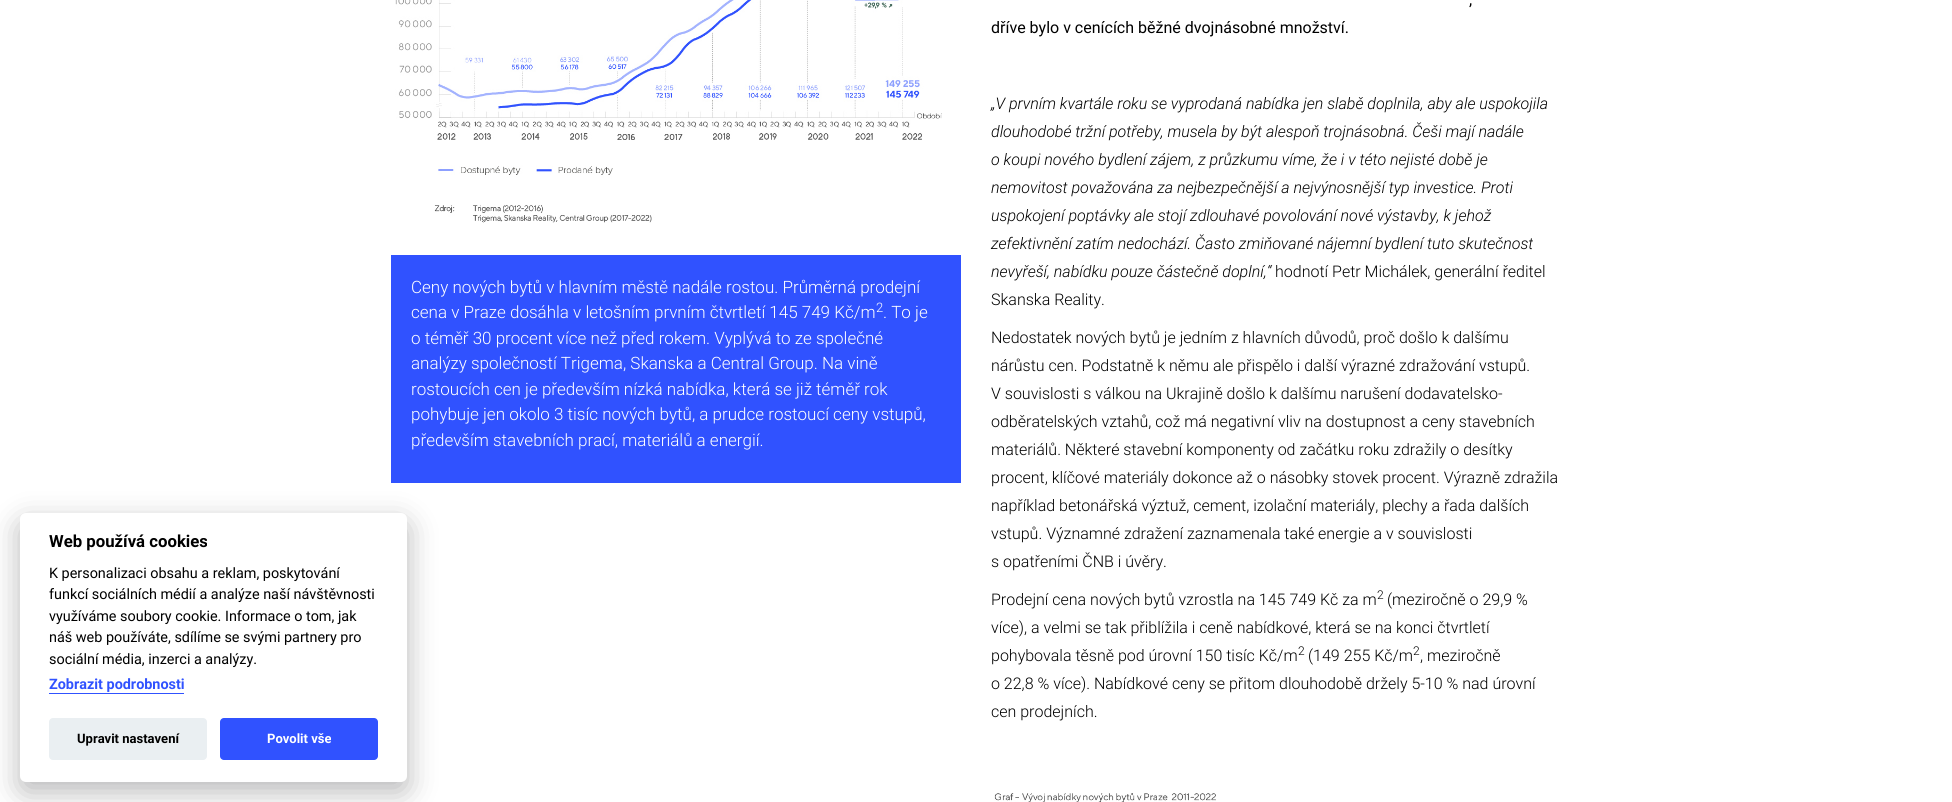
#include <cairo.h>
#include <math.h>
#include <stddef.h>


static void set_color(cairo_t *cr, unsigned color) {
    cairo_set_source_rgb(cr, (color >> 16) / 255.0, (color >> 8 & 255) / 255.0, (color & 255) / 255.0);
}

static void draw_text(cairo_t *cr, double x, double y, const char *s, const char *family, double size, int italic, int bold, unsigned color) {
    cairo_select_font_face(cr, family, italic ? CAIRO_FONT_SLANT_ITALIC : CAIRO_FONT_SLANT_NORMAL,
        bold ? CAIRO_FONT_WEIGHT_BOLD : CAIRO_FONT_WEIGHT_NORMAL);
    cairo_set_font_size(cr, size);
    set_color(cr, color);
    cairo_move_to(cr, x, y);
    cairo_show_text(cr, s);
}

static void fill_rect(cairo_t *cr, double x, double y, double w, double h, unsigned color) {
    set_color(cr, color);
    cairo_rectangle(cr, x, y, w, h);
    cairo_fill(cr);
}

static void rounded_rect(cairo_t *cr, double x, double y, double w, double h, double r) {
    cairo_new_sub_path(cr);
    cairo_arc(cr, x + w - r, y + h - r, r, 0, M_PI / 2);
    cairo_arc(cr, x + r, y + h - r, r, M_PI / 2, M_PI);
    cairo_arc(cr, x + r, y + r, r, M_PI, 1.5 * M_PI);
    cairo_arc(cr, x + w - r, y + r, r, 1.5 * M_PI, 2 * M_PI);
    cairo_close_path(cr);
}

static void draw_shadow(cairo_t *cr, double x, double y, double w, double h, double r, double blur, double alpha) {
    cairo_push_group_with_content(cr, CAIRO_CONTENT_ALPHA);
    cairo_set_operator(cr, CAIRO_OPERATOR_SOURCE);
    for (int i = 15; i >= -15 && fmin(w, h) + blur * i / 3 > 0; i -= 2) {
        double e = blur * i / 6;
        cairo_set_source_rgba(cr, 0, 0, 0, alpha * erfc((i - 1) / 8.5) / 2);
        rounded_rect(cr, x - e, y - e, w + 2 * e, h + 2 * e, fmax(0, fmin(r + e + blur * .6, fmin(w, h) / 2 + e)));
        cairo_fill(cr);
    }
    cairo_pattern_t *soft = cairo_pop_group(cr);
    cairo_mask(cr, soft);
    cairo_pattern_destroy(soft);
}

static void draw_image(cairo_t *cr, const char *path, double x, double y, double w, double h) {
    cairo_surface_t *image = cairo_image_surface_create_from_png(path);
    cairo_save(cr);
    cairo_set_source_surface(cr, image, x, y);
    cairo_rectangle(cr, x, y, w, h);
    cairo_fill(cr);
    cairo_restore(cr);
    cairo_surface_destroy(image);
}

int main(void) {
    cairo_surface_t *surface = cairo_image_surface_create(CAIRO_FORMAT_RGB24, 1952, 802);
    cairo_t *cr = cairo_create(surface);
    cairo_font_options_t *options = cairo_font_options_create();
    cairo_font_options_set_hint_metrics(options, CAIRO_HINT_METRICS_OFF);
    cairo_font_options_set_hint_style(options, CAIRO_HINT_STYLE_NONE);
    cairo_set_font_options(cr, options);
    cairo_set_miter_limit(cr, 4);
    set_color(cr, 0xFFFFFF);
    cairo_paint(cr);
    fill_rect(cr, 391, 255, 570, 228, 0x3052FF);
    set_color(cr, 0x020203);
    draw_shadow(cr, 20, 523, 387, 269, 6, 15, 0.28);
    set_color(cr, 0xFFFFFF);
    rounded_rect(cr, 20, 513, 387, 269, 6);
    cairo_fill(cr);
    draw_text(cr, 49, 547, "Web používá cookies", "Roboto", 16.75, 0, 1, 0x000000);
    draw_text(cr, 49, 578, "K personalizaci obsahu a reklam, poskytování", "Roboto", 14.4, 0, 0, 0x000000);
    draw_text(cr, 49, 599, "funkcí sociálních médií a analýze naší návštěvnosti", "Roboto", 14.4, 0, 0, 0x000000);
    draw_text(cr, 49, 621, "využíváme soubory cookie. Informace o tom, jak", "Roboto", 14.4, 0, 0, 0x000000);
    draw_text(cr, 49, 642, "náš web používáte, sdílíme se svými partnery pro", "Roboto", 14.4, 0, 0, 0x000000);
    draw_text(cr, 49, 664, "sociální média, inzerci a analýzy.", "Roboto", 14.4, 0, 0, 0x000000);
    draw_text(cr, 49, 689, "Zobrazit podrobnosti", "Roboto", 14.4, 0, 1, 0x3052FF);
    fill_rect(cr, 49, 693, 135, 1, 0x3052FF);
    set_color(cr, 0xEAEFF2);
    rounded_rect(cr, 49, 718, 158, 42, 4);
    cairo_fill(cr);
    draw_text(cr, 77, 743, "Upravit nastavení", "Roboto", 13, 0, 1, 0x000000);
    set_color(cr, 0x3052FF);
    rounded_rect(cr, 220, 718, 158, 42, 4);
    cairo_fill(cr);
    draw_text(cr, 267, 743, "Povolit vše", "Roboto", 13, 0, 1, 0xFFFFFF);
    draw_image(cr, "assets/img1.png", 395, 0, 547, 223);
    draw_text(cr, 411, 293, "Ceny nových bytů v hlavním městě nadále rostou. Průměrná prodejní", "Roboto Light", 17, 0, 0, 0xFFFFFF);
    draw_text(cr, 411, 318, "cena v Praze dosáhla v letošním prvním čtvrtletí 145 749 Kč/m", "Roboto Light", 17, 0, 0, 0xFFFFFF);
    draw_text(cr, 876, 312, "2", "Roboto Light", 13, 0, 0, 0xFFFFFF);
    draw_text(cr, 883, 318, ". To je", "Roboto Light", 17, 0, 0, 0xFFFFFF);
    draw_text(cr, 411, 344, "o téměř 30 procent více než před rokem. Vyplývá to ze společné", "Roboto Light", 17, 0, 0, 0xFFFFFF);
    draw_text(cr, 411, 369, "analýzy společností Trigema, Skanska a Central Group. Na vině", "Roboto Light", 17, 0, 0, 0xFFFFFF);
    draw_text(cr, 411, 395, "rostoucích cen je především nízká nabídka, která se již téměř rok", "Roboto Light", 17, 0, 0, 0xFFFFFF);
    draw_text(cr, 411, 420, "pohybuje jen okolo 3 tisíc nových bytů, a prudce rostoucí ceny vstupů,", "Roboto Light", 17, 0, 0, 0xFFFFFF);
    draw_text(cr, 411, 446, "především stavebních prací, materiálů a energií.", "Roboto Light", 17, 0, 0, 0xFFFFFF);
    draw_text(cr, 1469, 5, ",", "Roboto", 16, 0, 0, 0x000000);
    draw_text(cr, 991, 33, "dříve bylo v cenících běžné dvojnásobné množství.", "Roboto", 16, 0, 0, 0x000000);
    draw_text(cr, 991, 109, "„V prvním kvartále roku se vyprodaná nabídka jen slabě doplnila, aby ale uspokojila", "Roboto Light", 16, 1, 0, 0x000000);
    draw_text(cr, 991, 137, "dlouhodobé tržní potřeby, musela by být alespoň trojnásobná. Češi mají nadále", "Roboto Light", 16, 1, 0, 0x000000);
    draw_text(cr, 991, 165, "o koupi nového bydlení zájem, z průzkumu víme, že i v této nejisté době je", "Roboto Light", 16, 1, 0, 0x000000);
    draw_text(cr, 991, 193, "nemovitost považována za nejbezpečnější a nejvýnosnější typ investice. Proti", "Roboto Light", 16, 1, 0, 0x000000);
    draw_text(cr, 991, 221, "uspokojení poptávky ale stojí zdlouhavé povolování nové výstavby, k jehož", "Roboto Light", 16, 1, 0, 0x000000);
    draw_text(cr, 991, 249, "zefektivnění zatím nedochází. Často zmiňované nájemní bydlení tuto skutečnost", "Roboto Light", 16, 1, 0, 0x000000);
    draw_text(cr, 991, 277, "nevyřeší, nabídku pouze částečně doplní,“", "Roboto Light", 16, 1, 0, 0x000000);
    draw_text(cr, 1275, 277, "hodnotí Petr Michálek, generální ředitel", "Roboto Light", 16, 0, 0, 0x000000);
    draw_text(cr, 991, 305, "Skanska Reality.", "Roboto Light", 16, 0, 0, 0x000000);
    draw_text(cr, 991, 343, "Nedostatek nových bytů je jedním z hlavních důvodů, proč došlo k dalšímu", "Roboto Light", 16, 0, 0, 0x000000);
    draw_text(cr, 991, 371, "nárůstu cen. Podstatně k němu ale přispělo i další výrazné zdražování vstupů.", "Roboto Light", 16, 0, 0, 0x000000);
    draw_text(cr, 991, 399, "V souvislosti s válkou na Ukrajině došlo k dalšímu narušení dodavatelsko-", "Roboto Light", 16, 0, 0, 0x000000);
    draw_text(cr, 991, 427, "odběratelských vztahů, což má negativní vliv na dostupnost a ceny stavebních", "Roboto Light", 16, 0, 0, 0x000000);
    draw_text(cr, 991, 455, "materiálů. Některé stavební komponenty od začátku roku zdražily o desítky", "Roboto Light", 16, 0, 0, 0x000000);
    draw_text(cr, 991, 483, "procent, klíčové materiály dokonce až o násobky stovek procent. Výrazně zdražila", "Roboto Light", 16, 0, 0, 0x000000);
    draw_text(cr, 991, 511, "například betonářská výztuž, cement, izolační materiály, plechy a řada dalších", "Roboto Light", 16, 0, 0, 0x000000);
    draw_text(cr, 991, 539, "vstupů. Významné zdražení zaznamenala také energie a v souvislosti", "Roboto Light", 16, 0, 0, 0x000000);
    draw_text(cr, 991, 567, "s opatřeními ČNB i úvěry.", "Roboto Light", 16, 0, 0, 0x000000);
    draw_text(cr, 991, 605, "Prodejní cena nových bytů vzrostla na 145 749 Kč za m", "Roboto Light", 16, 0, 0, 0x000000);
    draw_text(cr, 1377, 599, "2", "Roboto Light", 12, 0, 0, 0x000000);
    draw_text(cr, 1387, 605, "(meziročně o 29,9 %", "Roboto Light", 16, 0, 0, 0x000000);
    draw_text(cr, 991, 633, "více), a velmi se tak přiblížila i ceně nabídkové, která se na konci čtvrtletí", "Roboto Light", 16, 0, 0, 0x000000);
    draw_text(cr, 991, 661, "pohybovala těsně pod úrovní 150 tisíc Kč/m", "Roboto Light", 16, 0, 0, 0x000000);
    draw_text(cr, 1298, 655, "2", "Roboto Light", 12, 0, 0, 0x000000);
    draw_text(cr, 1308, 661, "(149 255 Kč/m", "Roboto Light", 16, 0, 0, 0x000000);
    draw_text(cr, 1413, 655, "2", "Roboto Light", 12, 0, 0, 0x000000);
    draw_text(cr, 1420, 661, ", meziročně", "Roboto Light", 16, 0, 0, 0x000000);
    draw_text(cr, 991, 689, "o 22,8 % více). Nabídkové ceny se přitom dlouhodobě držely 5-10 % nad úrovní", "Roboto Light", 16, 0, 0, 0x000000);
    draw_text(cr, 991, 717, "cen prodejních.", "Roboto Light", 16, 0, 0, 0x000000);
    draw_image(cr, "assets/img2.png", 994, 793, 222, 9);
    cairo_surface_write_to_png(surface, "output.png");
    cairo_font_options_destroy(options);
    cairo_destroy(cr);
    cairo_surface_destroy(surface);
    return 0;
}
